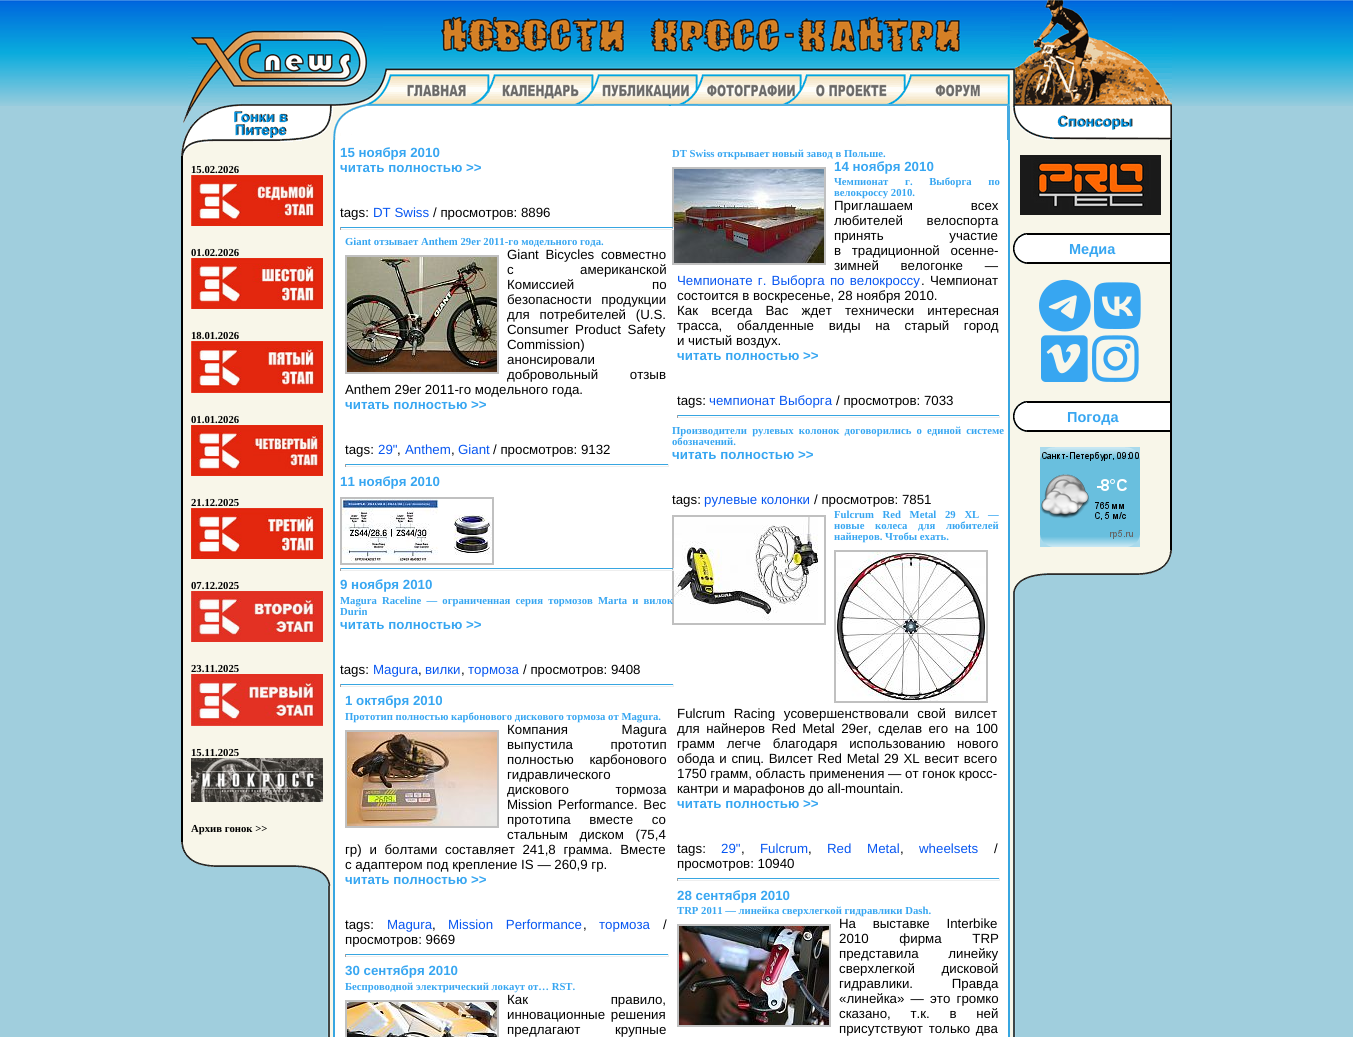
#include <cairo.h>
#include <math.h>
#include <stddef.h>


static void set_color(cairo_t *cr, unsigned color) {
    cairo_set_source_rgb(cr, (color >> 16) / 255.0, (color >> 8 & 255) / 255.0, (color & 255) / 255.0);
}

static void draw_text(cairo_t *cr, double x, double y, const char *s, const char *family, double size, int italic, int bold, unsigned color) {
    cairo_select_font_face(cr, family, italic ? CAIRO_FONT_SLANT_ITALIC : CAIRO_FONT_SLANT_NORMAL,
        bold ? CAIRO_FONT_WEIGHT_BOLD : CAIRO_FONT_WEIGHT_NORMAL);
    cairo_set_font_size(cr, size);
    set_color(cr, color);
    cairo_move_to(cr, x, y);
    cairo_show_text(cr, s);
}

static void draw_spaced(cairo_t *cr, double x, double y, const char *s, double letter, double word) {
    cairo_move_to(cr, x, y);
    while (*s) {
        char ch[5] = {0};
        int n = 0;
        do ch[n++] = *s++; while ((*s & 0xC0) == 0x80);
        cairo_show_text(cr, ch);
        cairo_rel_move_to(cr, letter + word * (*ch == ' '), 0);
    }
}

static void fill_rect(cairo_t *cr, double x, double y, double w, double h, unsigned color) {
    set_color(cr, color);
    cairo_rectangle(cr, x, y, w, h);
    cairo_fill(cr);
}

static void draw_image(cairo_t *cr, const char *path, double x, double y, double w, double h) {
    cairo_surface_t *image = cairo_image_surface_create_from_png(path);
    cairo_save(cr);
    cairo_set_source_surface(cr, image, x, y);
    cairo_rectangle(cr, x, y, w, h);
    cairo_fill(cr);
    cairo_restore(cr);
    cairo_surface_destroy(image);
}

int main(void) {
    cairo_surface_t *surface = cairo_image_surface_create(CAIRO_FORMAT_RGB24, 1353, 1037);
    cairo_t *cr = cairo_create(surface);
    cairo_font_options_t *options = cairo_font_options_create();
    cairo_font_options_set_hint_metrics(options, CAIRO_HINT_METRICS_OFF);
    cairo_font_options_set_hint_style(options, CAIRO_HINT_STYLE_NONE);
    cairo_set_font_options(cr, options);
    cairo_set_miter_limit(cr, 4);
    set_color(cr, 0xFFFFFF);
    cairo_paint(cr);
    draw_image(cr, "assets/img1.png", 0, 0, 1353, 106);
    draw_image(cr, "assets/img2.png", 188, 29, 180, 77);
    draw_image(cr, "assets/img3.png", 383, 15, 627, 59);
    draw_image(cr, "assets/img4.png", 1010, 0, 162, 106);
    draw_image(cr, "assets/img5.png", 368, 74, 122, 32);
    draw_image(cr, "assets/img6.png", 490, 74, 104, 32);
    draw_image(cr, "assets/img7.png", 594, 74, 104, 32);
    draw_image(cr, "assets/img8.png", 698, 74, 104, 32);
    draw_image(cr, "assets/img9.png", 802, 74, 104, 32);
    draw_image(cr, "assets/img10.png", 906, 74, 104, 32);
    fill_rect(cr, 0, 106, 1353, 931, 0xA0CEDD);
    fill_rect(cr, 330, 842, 3, 195, 0xF8F6E9);
    draw_image(cr, "assets/img11.png", 181, 886, 149, 151);
    draw_image(cr, "assets/img12.png", 181, 106, 152, 50);
    fill_rect(cr, 183, 156, 150, 686, 0xF8F6E9);
    fill_rect(cr, 181, 156, 2, 686, 0x000000);
    draw_text(cr, 191, 173, "15.02.2026", "Liberation Serif", 10.7, 0, 1, 0x000000);
    draw_image(cr, "assets/img13.png", 191, 175, 132, 51);
    draw_text(cr, 191, 256, "01.02.2026", "Liberation Serif", 10.7, 0, 1, 0x000000);
    draw_image(cr, "assets/img14.png", 191, 258, 132, 51);
    draw_text(cr, 191, 339, "18.01.2026", "Liberation Serif", 10.7, 0, 1, 0x000000);
    draw_image(cr, "assets/img15.png", 191, 341, 132, 52);
    draw_text(cr, 191, 423, "01.01.2026", "Liberation Serif", 10.7, 0, 1, 0x000000);
    draw_image(cr, "assets/img16.png", 191, 425, 132, 51);
    draw_text(cr, 191, 506, "21.12.2025", "Liberation Serif", 10.7, 0, 1, 0x000000);
    draw_image(cr, "assets/img17.png", 191, 508, 132, 51);
    draw_text(cr, 191, 589, "07.12.2025", "Liberation Serif", 10.7, 0, 1, 0x000000);
    draw_image(cr, "assets/img18.png", 191, 591, 132, 51);
    draw_text(cr, 191, 672, "23.11.2025", "Liberation Serif", 10.7, 0, 1, 0x000000);
    draw_image(cr, "assets/img19.png", 191, 674, 132, 52);
    draw_text(cr, 191, 756, "15.11.2025", "Liberation Serif", 10.7, 0, 1, 0x000000);
    draw_image(cr, "assets/img20.png", 191, 758, 132, 44);
    draw_text(cr, 191, 832, "Архив гонок >>", "Liberation Serif", 10.7, 0, 1, 0x000000);
    draw_image(cr, "assets/img21.png", 181, 842, 150, 44);
    fill_rect(cr, 335, 106, 673, 931, 0xFFFFFF);
    draw_image(cr, "assets/img22.png", 333, 106, 33, 34);
    fill_rect(cr, 1007, 106, 3, 34, 0x44AAE1);
    fill_rect(cr, 1008, 140, 2, 897, 0x37A6E1);
    fill_rect(cr, 333, 140, 2, 897, 0x37A6E1);
    draw_text(cr, 340, 157, "15 ноября 2010", "Liberation Sans", 13.3, 0, 1, 0x37A6F1);
    draw_text(cr, 340, 172, "читать полностью >>", "Liberation Sans", 13.3, 0, 1, 0x37A6F1);
    draw_text(cr, 340, 217, "tags:", "Liberation Sans", 13.3, 0, 0, 0x000000);
    draw_text(cr, 373, 217, "DT Swiss", "Liberation Sans", 13.3, 0, 0, 0x0756F1);
    draw_text(cr, 433, 217, "/ просмотров: 8896", "Liberation Sans", 13.3, 0, 0, 0x000000);
    cairo_rectangle(cr, 673, 168, 152, 96);
    set_color(cr, 0xC0C0C0);
    cairo_stroke(cr);
    fill_rect(cr, 340, 227, 334, 1, 0x37A6E1);
    fill_rect(cr, 673, 227, 1, 3, 0xEEEEEE);
    fill_rect(cr, 340, 229, 334, 1, 0xEEEEEE);
    fill_rect(cr, 340, 227, 1, 3, 0x9F9F9F);
    draw_text(cr, 345, 245, "Giant отзывает Anthem 29er 2011-го модельного года.", "Liberation Serif", 10.7, 0, 1, 0x37A6F1);
    cairo_rectangle(cr, 346, 256, 152, 117);
    set_color(cr, 0xC0C0C0);
    cairo_stroke(cr);
    draw_image(cr, "assets/img23.png", 347, 257, 150, 115);
    cairo_select_font_face(cr, "Liberation Sans", CAIRO_FONT_SLANT_NORMAL, CAIRO_FONT_WEIGHT_NORMAL);
    cairo_set_font_size(cr, 13.3);
    set_color(cr, 0x000000);
    draw_spaced(cr, 507, 259, "Giant Bicycles совместно", 0, 3);
    draw_text(cr, 507, 274, "с", "Liberation Sans", 13.3, 0, 0, 0x000000);
    draw_text(cr, 580, 274, "американской", "Liberation Sans", 13.3, 0, 0, 0x000000);
    draw_spaced(cr, 507, 289, "Комиссией по", 0, 74);
    draw_spaced(cr, 507, 304, "безопасности продукции", 0, 6);
    draw_spaced(cr, 507, 319, "для потребителей (U.S.", 0, 6);
    draw_spaced(cr, 507, 334, "Consumer Product Safety", 0, 3);
    draw_text(cr, 507, 349, "Commission)", "Liberation Sans", 13.3, 0, 0, 0x000000);
    draw_text(cr, 507, 364, "анонсировали", "Liberation Sans", 13.3, 0, 0, 0x000000);
    draw_spaced(cr, 507, 379, "добровольный отзыв", 0, 28);
    draw_text(cr, 345, 394, "Anthem 29er 2011-го модельного года.", "Liberation Sans", 13.3, 0, 0, 0x000000);
    draw_text(cr, 345, 409, "читать полностью >>", "Liberation Sans", 13.3, 0, 1, 0x37A6F1);
    draw_text(cr, 345, 454, "tags:", "Liberation Sans", 13.3, 0, 0, 0x000000);
    draw_text(cr, 378, 454, "29\"", "Liberation Sans", 13.3, 0, 0, 0x0756F1);
    draw_text(cr, 397, 454, ",", "Liberation Sans", 13.3, 0, 0, 0x000000);
    draw_text(cr, 405, 454, "Anthem", "Liberation Sans", 13.3, 0, 0, 0x0756F1);
    draw_text(cr, 451, 454, ",", "Liberation Sans", 13.3, 0, 0, 0x000000);
    draw_text(cr, 458, 454, "Giant", "Liberation Sans", 13.3, 0, 0, 0x0756F1);
    draw_text(cr, 493, 454, "/ просмотров: 9132", "Liberation Sans", 13.3, 0, 0, 0x000000);
    fill_rect(cr, 345, 464, 324, 1, 0x37A6E1);
    fill_rect(cr, 668, 464, 1, 3, 0xEEEEEE);
    fill_rect(cr, 345, 466, 324, 1, 0xEEEEEE);
    fill_rect(cr, 345, 464, 1, 3, 0x9F9F9F);
    draw_text(cr, 340, 486, "11 ноября 2010", "Liberation Sans", 13.3, 0, 1, 0x37A6F1);
    cairo_rectangle(cr, 341, 498, 152, 66);
    set_color(cr, 0xC0C0C0);
    cairo_stroke(cr);
    draw_image(cr, "assets/img24.png", 342, 499, 150, 64);
    cairo_rectangle(cr, 673, 516, 152, 108);
    cairo_stroke(cr);
    fill_rect(cr, 340, 568, 334, 1, 0x37A6E1);
    fill_rect(cr, 673, 568, 1, 3, 0xEEEEEE);
    fill_rect(cr, 340, 570, 334, 1, 0xEEEEEE);
    fill_rect(cr, 340, 568, 1, 3, 0x9F9F9F);
    draw_text(cr, 340, 589, "9 ноября 2010", "Liberation Sans", 13.3, 0, 1, 0x37A6F1);
    cairo_select_font_face(cr, "Liberation Serif", CAIRO_FONT_SLANT_NORMAL, CAIRO_FONT_WEIGHT_BOLD);
    cairo_set_font_size(cr, 10.7);
    draw_spaced(cr, 340, 604, "Magura Raceline — ограниченная серия тормозов Marta и вилок", 0, 2.5);
    draw_text(cr, 340, 615, "Durin", "Liberation Serif", 10.7, 0, 1, 0x37A6F1);
    draw_text(cr, 340, 629, "читать полностью >>", "Liberation Sans", 13.3, 0, 1, 0x37A6F1);
    draw_text(cr, 340, 674, "tags:", "Liberation Sans", 13.3, 0, 0, 0x000000);
    draw_text(cr, 373, 674, "Magura", "Liberation Sans", 13.3, 0, 0, 0x0756F1);
    draw_text(cr, 418, 674, ",", "Liberation Sans", 13.3, 0, 0, 0x000000);
    draw_text(cr, 425, 674, "вилки", "Liberation Sans", 13.3, 0, 0, 0x0756F1);
    draw_text(cr, 461, 674, ",", "Liberation Sans", 13.3, 0, 0, 0x000000);
    draw_text(cr, 468, 674, "тормоза", "Liberation Sans", 13.3, 0, 0, 0x0756F1);
    draw_text(cr, 523, 674, "/ просмотров: 9408", "Liberation Sans", 13.3, 0, 0, 0x000000);
    fill_rect(cr, 340, 684, 334, 1, 0x37A6E1);
    fill_rect(cr, 673, 684, 1, 3, 0xEEEEEE);
    fill_rect(cr, 340, 686, 334, 1, 0xEEEEEE);
    fill_rect(cr, 340, 684, 1, 3, 0x9F9F9F);
    draw_text(cr, 345, 705, "1 октября 2010", "Liberation Sans", 13.3, 0, 1, 0x37A6F1);
    draw_text(cr, 345, 720, "Прототип полностью карбонового дискового тормоза от Magura.", "Liberation Serif", 10.7, 0, 1, 0x37A6F1);
    cairo_rectangle(cr, 346, 731, 152, 96);
    set_color(cr, 0xC0C0C0);
    cairo_stroke(cr);
    draw_image(cr, "assets/img25.png", 347, 732, 150, 94);
    cairo_select_font_face(cr, "Liberation Sans", CAIRO_FONT_SLANT_NORMAL, CAIRO_FONT_WEIGHT_NORMAL);
    cairo_set_font_size(cr, 13.3);
    set_color(cr, 0x000000);
    draw_spaced(cr, 507, 734, "Компания Magura", 0, 50);
    draw_spaced(cr, 507, 749, "выпустила прототип", 0, 34);
    draw_spaced(cr, 507, 764, "полностью карбонового", 0, 12);
    draw_text(cr, 507, 779, "гидравлического", "Liberation Sans", 13.3, 0, 0, 0x000000);
    draw_spaced(cr, 507, 794, "дискового тормоза", 0, 43);
    draw_spaced(cr, 507, 809, "Mission Performance. Вес", 0, 2);
    draw_spaced(cr, 507, 824, "прототипа вместе со", 0, 15);
    draw_spaced(cr, 507, 839, "стальным диском (75,4", 0, 8);
    draw_spaced(cr, 345, 854, "гр) и болтами составляет 241,8 грамма. Вместе", 0, 4);
    draw_text(cr, 345, 869, "с адаптером под крепление IS — 260,9 гр.", "Liberation Sans", 13.3, 0, 0, 0x000000);
    draw_text(cr, 345, 884, "читать полностью >>", "Liberation Sans", 13.3, 0, 1, 0x37A6F1);
    draw_text(cr, 345, 929, "tags:", "Liberation Sans", 13.3, 0, 0, 0x000000);
    draw_text(cr, 387, 929, "Magura", "Liberation Sans", 13.3, 0, 0, 0x0756F1);
    draw_text(cr, 432, 929, ",", "Liberation Sans", 13.3, 0, 0, 0x000000);
    set_color(cr, 0x0756F1);
    draw_spaced(cr, 448, 929, "Mission Performance", 0, 9);
    draw_text(cr, 583, 929, ",", "Liberation Sans", 13.3, 0, 0, 0x000000);
    draw_text(cr, 599, 929, "тормоза", "Liberation Sans", 13.3, 0, 0, 0x0756F1);
    draw_text(cr, 663, 929, "/", "Liberation Sans", 13.3, 0, 0, 0x000000);
    draw_text(cr, 345, 944, "просмотров: 9669", "Liberation Sans", 13.3, 0, 0, 0x000000);
    fill_rect(cr, 345, 954, 324, 1, 0x37A6E1);
    fill_rect(cr, 668, 954, 1, 3, 0xEEEEEE);
    fill_rect(cr, 345, 956, 324, 1, 0xEEEEEE);
    fill_rect(cr, 345, 954, 1, 3, 0x9F9F9F);
    draw_text(cr, 345, 975, "30 сентября 2010", "Liberation Sans", 13.3, 0, 1, 0x37A6F1);
    draw_text(cr, 345, 990, "Беспроводной электрический локаут от… RST.", "Liberation Serif", 10.7, 0, 1, 0x37A6F1);
    cairo_rectangle(cr, 346, 1001, 152, 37);
    set_color(cr, 0xC0C0C0);
    cairo_stroke(cr);
    draw_image(cr, "assets/img26.png", 347, 1002, 150, 35);
    cairo_select_font_face(cr, "Liberation Sans", CAIRO_FONT_SLANT_NORMAL, CAIRO_FONT_WEIGHT_NORMAL);
    cairo_set_font_size(cr, 13.3);
    set_color(cr, 0x000000);
    draw_spaced(cr, 507, 1004, "Как правило,", 0, 79);
    draw_spaced(cr, 507, 1019, "инновационные решения", 0, 2);
    draw_spaced(cr, 507, 1034, "предлагают крупные", 0, 31);
    draw_text(cr, 672, 157, "DT Swiss открывает новый завод в Польше.", "Liberation Serif", 10.7, 0, 1, 0x37A6F1);
    draw_text(cr, 834, 171, "14 ноября 2010", "Liberation Sans", 13.3, 0, 1, 0x37A6F1);
    cairo_select_font_face(cr, "Liberation Serif", CAIRO_FONT_SLANT_NORMAL, CAIRO_FONT_WEIGHT_BOLD);
    cairo_set_font_size(cr, 10.7);
    draw_spaced(cr, 834, 185, "Чемпионат г. Выборга по", 0, 14);
    draw_text(cr, 834, 196, "велокроссу 2010.", "Liberation Serif", 10.7, 0, 1, 0x37A6F1);
    cairo_select_font_face(cr, "Liberation Sans", CAIRO_FONT_SLANT_NORMAL, CAIRO_FONT_WEIGHT_NORMAL);
    cairo_set_font_size(cr, 13.3);
    set_color(cr, 0x000000);
    draw_spaced(cr, 834, 210, "Приглашаем всех", 0, 54);
    draw_spaced(cr, 834, 225, "любителей велоспорта", 0, 20);
    draw_spaced(cr, 834, 240, "принять участие", 0, 62);
    draw_spaced(cr, 834, 255, "в традиционной осенне-", 0, 7);
    draw_spaced(cr, 834, 270, "зимней велогонке —", 0, 18);
    set_color(cr, 0x0756F1);
    draw_spaced(cr, 677, 285, "Чемпионате г. Выборга по велокроссу", 0, 1.5);
    set_color(cr, 0x000000);
    draw_spaced(cr, 921, 285, ". Чемпионат", 0, 1.5);
    draw_text(cr, 677, 300, "состоится в воскресенье, 28 ноября 2010.", "Liberation Sans", 13.3, 0, 0, 0x000000);
    draw_spaced(cr, 677, 315, "Как всегда Вас ждет технически интересная", 0, 9.5);
    draw_spaced(cr, 677, 330, "трасса, обалденные виды на старый город", 0, 11);
    draw_text(cr, 677, 345, "и чистый воздух.", "Liberation Sans", 13.3, 0, 0, 0x000000);
    draw_text(cr, 677, 360, "читать полностью >>", "Liberation Sans", 13.3, 0, 1, 0x37A6F1);
    draw_text(cr, 677, 405, "tags:", "Liberation Sans", 13.3, 0, 0, 0x000000);
    draw_text(cr, 709, 405, "чемпионат Выборга", "Liberation Sans", 13.3, 0, 0, 0x0756F1);
    draw_text(cr, 836, 405, "/ просмотров: 7033", "Liberation Sans", 13.3, 0, 0, 0x000000);
    fill_rect(cr, 677, 415, 323, 1, 0x37A6E1);
    fill_rect(cr, 999, 415, 1, 3, 0xEEEEEE);
    fill_rect(cr, 677, 417, 323, 1, 0xEEEEEE);
    fill_rect(cr, 677, 415, 1, 3, 0x9F9F9F);
    draw_image(cr, "assets/img27.png", 674, 169, 150, 94);
    cairo_select_font_face(cr, "Liberation Serif", CAIRO_FONT_SLANT_NORMAL, CAIRO_FONT_WEIGHT_BOLD);
    cairo_set_font_size(cr, 10.7);
    set_color(cr, 0x37A6F1);
    draw_spaced(cr, 672, 434, "Производители рулевых колонок договорились о единой системе", 0, 2.5);
    draw_text(cr, 672, 445, "обозначений.", "Liberation Serif", 10.7, 0, 1, 0x37A6F1);
    draw_text(cr, 672, 459, "читать полностью >>", "Liberation Sans", 13.3, 0, 1, 0x37A6F1);
    draw_text(cr, 672, 504, "tags:", "Liberation Sans", 13.3, 0, 0, 0x000000);
    draw_text(cr, 704, 504, "рулевые колонки", "Liberation Sans", 13.3, 0, 0, 0x0756F1);
    draw_text(cr, 814, 504, "/ просмотров: 7851", "Liberation Sans", 13.3, 0, 0, 0x000000);
    cairo_select_font_face(cr, "Liberation Serif", CAIRO_FONT_SLANT_NORMAL, CAIRO_FONT_WEIGHT_BOLD);
    cairo_set_font_size(cr, 10.7);
    set_color(cr, 0x37A6F1);
    draw_spaced(cr, 834, 518, "Fulcrum Red Metal 29 XL —", 0, 6);
    draw_spaced(cr, 834, 529, "новые колеса для любителей", 0, 8);
    draw_text(cr, 834, 540, "найнеров. Чтобы ехать.", "Liberation Serif", 10.7, 0, 1, 0x37A6F1);
    cairo_rectangle(cr, 835, 551, 152, 151);
    set_color(cr, 0xC0C0C0);
    cairo_stroke(cr);
    draw_image(cr, "assets/img28.png", 836, 552, 150, 149);
    cairo_select_font_face(cr, "Liberation Sans", CAIRO_FONT_SLANT_NORMAL, CAIRO_FONT_WEIGHT_NORMAL);
    cairo_set_font_size(cr, 13.3);
    set_color(cr, 0x000000);
    draw_spaced(cr, 677, 718, "Fulcrum Racing усовершенствовали свой вилсет", 0, 5);
    draw_spaced(cr, 677, 733, "для найнеров Red Metal 29er, сделав его на 100", 0, 2.75);
    draw_spaced(cr, 677, 748, "грамм легче благодаря использованию нового", 0, 8);
    draw_spaced(cr, 677, 763, "обода и спиц. Вилсет Red Metal 29 XL весит всего", 0, 1);
    draw_text(cr, 677, 778, "1750 грамм, область применения — от гонок кросс-", "Liberation Sans", 13.3, 0, 0, 0x000000);
    draw_text(cr, 677, 793, "кантри и марафонов до all-mountain.", "Liberation Sans", 13.3, 0, 0, 0x000000);
    draw_text(cr, 677, 808, "читать полностью >>", "Liberation Sans", 13.3, 0, 1, 0x37A6F1);
    draw_text(cr, 677, 853, "tags:", "Liberation Sans", 13.3, 0, 0, 0x000000);
    draw_text(cr, 721, 853, "29\"", "Liberation Sans", 13.3, 0, 0, 0x0756F1);
    draw_text(cr, 741, 853, ",", "Liberation Sans", 13.3, 0, 0, 0x000000);
    draw_text(cr, 760, 853, "Fulcrum", "Liberation Sans", 13.3, 0, 0, 0x0756F1);
    draw_text(cr, 808, 853, ",", "Liberation Sans", 13.3, 0, 0, 0x000000);
    set_color(cr, 0x0756F1);
    draw_spaced(cr, 827, 853, "Red Metal", 0, 12);
    draw_text(cr, 900, 853, ",", "Liberation Sans", 13.3, 0, 0, 0x000000);
    draw_text(cr, 919, 853, "wheelsets", "Liberation Sans", 13.3, 0, 0, 0x0756F1);
    draw_text(cr, 994, 853, "/", "Liberation Sans", 13.3, 0, 0, 0x000000);
    draw_text(cr, 677, 868, "просмотров: 10940", "Liberation Sans", 13.3, 0, 0, 0x000000);
    fill_rect(cr, 677, 878, 323, 1, 0x37A6E1);
    fill_rect(cr, 999, 878, 1, 3, 0xEEEEEE);
    fill_rect(cr, 677, 880, 323, 1, 0xEEEEEE);
    fill_rect(cr, 677, 878, 1, 3, 0x9F9F9F);
    draw_image(cr, "assets/img29.png", 674, 517, 144, 104);
    draw_text(cr, 677, 900, "28 сентября 2010", "Liberation Sans", 13.3, 0, 1, 0x37A6F1);
    draw_text(cr, 677, 914, "TRP 2011 — линейка сверхлегкой гидравлики Dash.", "Liberation Serif", 10.7, 0, 1, 0x37A6F1);
    cairo_rectangle(cr, 678, 925, 152, 101);
    set_color(cr, 0xC0C0C0);
    cairo_stroke(cr);
    draw_image(cr, "assets/img30.png", 679, 926, 150, 99);
    cairo_select_font_face(cr, "Liberation Sans", CAIRO_FONT_SLANT_NORMAL, CAIRO_FONT_WEIGHT_NORMAL);
    cairo_set_font_size(cr, 13.3);
    set_color(cr, 0x000000);
    draw_spaced(cr, 839, 928, "На выставке Interbike", 0, 13);
    draw_spaced(cr, 839, 943, "2010 фирма TRP", 0, 27);
    draw_spaced(cr, 839, 958, "представила линейку", 0, 26);
    draw_spaced(cr, 839, 973, "сверхлегкой дисковой", 0, 23);
    draw_spaced(cr, 839, 988, "гидравлики. Правда", 0, 35);
    draw_spaced(cr, 839, 1003, "«линейка» — это громко", 0, 2.5);
    draw_spaced(cr, 839, 1018, "сказано, т.к. в ней", 0, 16);
    draw_spaced(cr, 839, 1033, "присутствуют только два", 0, 2);
    fill_rect(cr, 1010, 106, 3, 931, 0xF8F6E9);
    draw_image(cr, "assets/img31.png", 1013, 592, 159, 445);
    draw_image(cr, "assets/img32.png", 1012, 106, 160, 34);
    fill_rect(cr, 1013, 140, 157, 410, 0xF8F6E9);
    fill_rect(cr, 1170, 140, 2, 410, 0x000000);
    draw_image(cr, "assets/img33.png", 1020, 155, 141, 60);
    draw_image(cr, "assets/img34.png", 1013, 233, 14, 31);
    fill_rect(cr, 1027, 235, 143, 27, 0xFFFFFF);
    fill_rect(cr, 1027, 233, 143, 2, 0x000000);
    fill_rect(cr, 1027, 262, 143, 2, 0x000000);
    draw_text(cr, 1069, 254, "Медиа", "Liberation Sans", 14.5, 0, 1, 0x37A6F1);
    draw_image(cr, "assets/img35.png", 1039, 279, 52, 53);
    draw_image(cr, "assets/img36.png", 1094, 282, 47, 47);
    draw_image(cr, "assets/img37.png", 1041, 335, 47, 47);
    draw_image(cr, "assets/img38.png", 1092, 335, 47, 47);
    draw_image(cr, "assets/img34.png", 1013, 401, 14, 31);
    fill_rect(cr, 1027, 403, 143, 27, 0xFFFFFF);
    fill_rect(cr, 1027, 401, 143, 2, 0x000000);
    fill_rect(cr, 1027, 430, 143, 2, 0x000000);
    draw_text(cr, 1067, 422, "Погода", "Liberation Sans", 14.5, 0, 1, 0x37A6F1);
    draw_image(cr, "assets/img39.png", 1040, 447, 100, 100);
    draw_image(cr, "assets/img40.png", 1013, 550, 159, 42);
    cairo_surface_write_to_png(surface, "output.png");
    cairo_font_options_destroy(options);
    cairo_destroy(cr);
    cairo_surface_destroy(surface);
    return 0;
}
